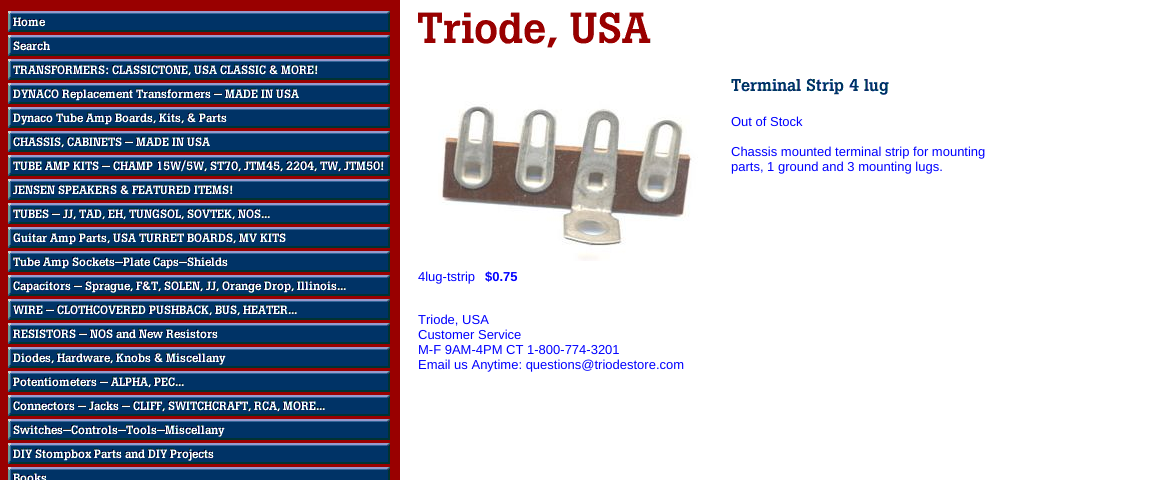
#include <cairo.h>
#include <math.h>
#include <stddef.h>


static void set_color(cairo_t *cr, unsigned color) {
    cairo_set_source_rgb(cr, (color >> 16) / 255.0, (color >> 8 & 255) / 255.0, (color & 255) / 255.0);
}

static void draw_text(cairo_t *cr, double x, double y, const char *s, const char *family, double size, int italic, int bold, unsigned color) {
    cairo_select_font_face(cr, family, italic ? CAIRO_FONT_SLANT_ITALIC : CAIRO_FONT_SLANT_NORMAL,
        bold ? CAIRO_FONT_WEIGHT_BOLD : CAIRO_FONT_WEIGHT_NORMAL);
    cairo_set_font_size(cr, size);
    set_color(cr, color);
    cairo_move_to(cr, x, y);
    cairo_show_text(cr, s);
}

static void fill_rect(cairo_t *cr, double x, double y, double w, double h, unsigned color) {
    set_color(cr, color);
    cairo_rectangle(cr, x, y, w, h);
    cairo_fill(cr);
}

static void draw_image(cairo_t *cr, const char *path, double x, double y, double w, double h) {
    cairo_surface_t *image = cairo_image_surface_create_from_png(path);
    cairo_save(cr);
    cairo_set_source_surface(cr, image, x, y);
    cairo_rectangle(cr, x, y, w, h);
    cairo_fill(cr);
    cairo_restore(cr);
    cairo_surface_destroy(image);
}

int main(void) {
    cairo_surface_t *surface = cairo_image_surface_create(CAIRO_FORMAT_RGB24, 1172, 480);
    cairo_t *cr = cairo_create(surface);
    cairo_font_options_t *options = cairo_font_options_create();
    cairo_font_options_set_hint_metrics(options, CAIRO_HINT_METRICS_OFF);
    cairo_font_options_set_hint_style(options, CAIRO_HINT_STYLE_NONE);
    cairo_set_font_options(cr, options);
    cairo_set_miter_limit(cr, 4);
    set_color(cr, 0xFFFFFF);
    cairo_paint(cr);
    fill_rect(cr, 0, 0, 400, 480, 0x990000);
    draw_image(cr, "assets/img1.png", 8, 11, 382, 469);
    draw_image(cr, "assets/img2.png", 418, 12, 233, 36);
    draw_image(cr, "assets/img3.png", 731, 78, 158, 17);
    draw_image(cr, "assets/img4.png", 438, 101, 260, 160);
    draw_text(cr, 731, 126, "Out of Stock", "Liberation Sans", 13, 0, 0, 0x0000FF);
    draw_text(cr, 731, 156, "Chassis mounted terminal strip for mounting", "Liberation Sans", 13, 0, 0, 0x0000FF);
    draw_text(cr, 731, 171, "parts, 1 ground and 3 mounting lugs.", "Liberation Sans", 13, 0, 0, 0x0000FF);
    draw_text(cr, 418, 281, "4lug-tstrip", "Liberation Sans", 13, 0, 0, 0x0000FF);
    draw_text(cr, 485, 281, "$0.75", "Liberation Sans", 13, 0, 1, 0x0000FF);
    draw_text(cr, 418, 324, "Triode, USA", "Liberation Sans", 13, 0, 0, 0x0000FF);
    draw_text(cr, 418, 339, "Customer Service", "Liberation Sans", 13, 0, 0, 0x0000FF);
    draw_text(cr, 418, 354, "M-F 9AM-4PM CT 1-800-774-3201", "Liberation Sans", 13, 0, 0, 0x0000FF);
    draw_text(cr, 418, 369, "Email us Anytime: questions@triodestore.com", "Liberation Sans", 13, 0, 0, 0x0000FF);
    cairo_surface_write_to_png(surface, "output.png");
    cairo_font_options_destroy(options);
    cairo_destroy(cr);
    cairo_surface_destroy(surface);
    return 0;
}
